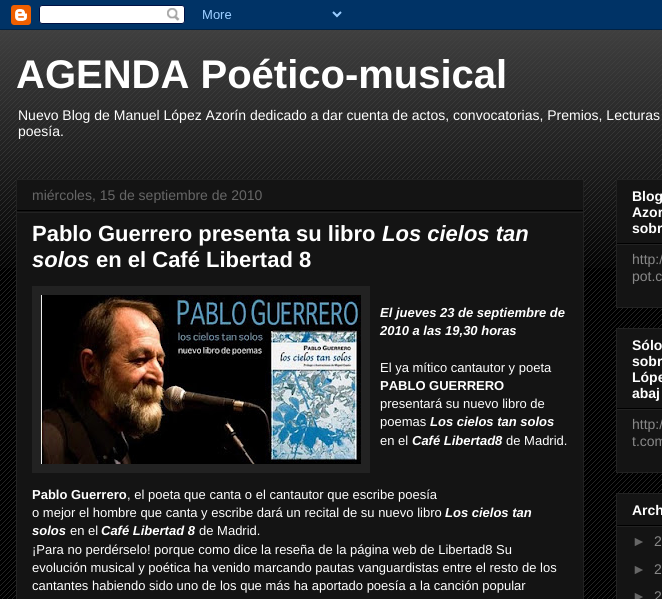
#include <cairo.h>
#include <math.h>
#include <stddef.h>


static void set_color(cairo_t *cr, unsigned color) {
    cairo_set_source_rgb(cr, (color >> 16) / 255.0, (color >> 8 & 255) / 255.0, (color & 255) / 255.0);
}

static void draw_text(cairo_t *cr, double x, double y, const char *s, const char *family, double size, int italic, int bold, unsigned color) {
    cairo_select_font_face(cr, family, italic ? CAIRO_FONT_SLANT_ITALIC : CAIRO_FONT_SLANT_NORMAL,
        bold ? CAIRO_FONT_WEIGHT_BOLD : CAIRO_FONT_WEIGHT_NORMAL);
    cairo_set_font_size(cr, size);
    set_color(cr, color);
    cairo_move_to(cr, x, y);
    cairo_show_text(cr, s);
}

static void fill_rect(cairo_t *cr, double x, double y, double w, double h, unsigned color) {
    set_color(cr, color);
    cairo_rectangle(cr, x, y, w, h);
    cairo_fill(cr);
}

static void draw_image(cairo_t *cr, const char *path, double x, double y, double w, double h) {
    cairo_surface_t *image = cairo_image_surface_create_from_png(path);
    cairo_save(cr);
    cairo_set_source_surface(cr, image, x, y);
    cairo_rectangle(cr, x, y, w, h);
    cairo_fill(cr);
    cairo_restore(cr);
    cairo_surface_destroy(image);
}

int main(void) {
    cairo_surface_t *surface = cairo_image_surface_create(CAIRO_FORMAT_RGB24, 662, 599);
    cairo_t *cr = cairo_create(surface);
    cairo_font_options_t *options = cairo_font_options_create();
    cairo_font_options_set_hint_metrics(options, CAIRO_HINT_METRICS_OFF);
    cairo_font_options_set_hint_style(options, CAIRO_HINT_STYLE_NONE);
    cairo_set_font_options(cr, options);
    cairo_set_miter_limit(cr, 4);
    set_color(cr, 0x000000);
    cairo_paint(cr);
    draw_image(cr, "assets/img1.png", 0, 30, 662, 569);
    draw_image(cr, "assets/img2.png", 0, 0, 662, 30);
    draw_image(cr, "assets/img3.png", 0, 30, 662, 238);
    draw_text(cr, 16, 88, "AGENDA Poético-musical", "Liberation Sans", 40, 0, 1, 0xFFFFFF);
    draw_text(cr, 18, 120, "Nuevo Blog de Manuel López Azorín dedicado a dar cuenta de actos, convocatorias, Premios, Lecturas", "Liberation Sans", 14, 0, 0, 0xFFFFFF);
    draw_text(cr, 18, 136, "poesía.", "Liberation Sans", 14, 0, 0, 0xFFFFFF);
    set_color(cr, 0x141414);
    cairo_rectangle(cr, 16.5, 179.5, 567, 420);
    cairo_fill_preserve(cr);
    set_color(cr, 0x222222);
    cairo_set_line_width(cr, 1);
    cairo_stroke(cr);
    fill_rect(cr, 17, 210, 566, 1, 0x000000);
    draw_text(cr, 32, 200, "miércoles, 15 de septiembre de 2010", "Liberation Sans", 14, 0, 0, 0x666666);
    fill_rect(cr, 17, 212, 566, 1, 0x222222);
    draw_text(cr, 32, 241, "Pablo Guerrero presenta su libro", "Liberation Sans", 22, 0, 1, 0xFFFFFF);
    draw_text(cr, 382, 241, "Los cielos tan", "Liberation Sans", 22, 1, 1, 0xFFFFFF);
    draw_text(cr, 32, 267, "solos", "Liberation Sans", 22, 1, 1, 0xFFFFFF);
    draw_text(cr, 96, 267, "en el Café Libertad 8", "Liberation Sans", 22, 0, 1, 0xFFFFFF);
    fill_rect(cr, 32, 286, 338, 187, 0x222222);
    draw_image(cr, "assets/img4.png", 41, 295, 320, 169);
    draw_text(cr, 380, 317, "El jueves 23 de septiembre de", "Liberation Sans", 13, 1, 1, 0xFFFFFF);
    draw_text(cr, 380, 335, "2010 a las 19,30 horas", "Liberation Sans", 13, 1, 1, 0xFFFFFF);
    draw_text(cr, 380, 372, "El ya mítico cantautor y poeta", "Liberation Sans", 13, 0, 0, 0xFFFFFF);
    draw_text(cr, 380, 390, "PABLO GUERRERO", "Liberation Sans", 13, 0, 1, 0xFFFFFF);
    draw_text(cr, 380, 408, "presentará su nuevo libro de", "Liberation Sans", 13, 0, 0, 0xFFFFFF);
    draw_text(cr, 380, 426, "poemas", "Liberation Sans", 13, 0, 0, 0xFFFFFF);
    draw_text(cr, 430, 426, "Los cielos tan solos", "Liberation Sans", 13, 1, 1, 0xFFFFFF);
    draw_text(cr, 380, 445, "en el", "Liberation Sans", 13, 0, 0, 0xFFFFFF);
    draw_text(cr, 412, 445, "Café Libertad8", "Liberation Sans", 13, 1, 1, 0xFFFFFF);
    draw_text(cr, 506, 445, "de Madrid.", "Liberation Sans", 13, 0, 0, 0xFFFFFF);
    draw_text(cr, 32, 499, "Pablo Guerrero", "Liberation Sans", 13, 0, 1, 0xFFFFFF);
    draw_text(cr, 127, 499, ", el poeta que canta o el cantautor que escribe poesía", "Liberation Sans", 13, 0, 0, 0xFFFFFF);
    draw_text(cr, 32, 517, "o mejor el hombre que canta y escribe dará un recital de su nuevo libro", "Liberation Sans", 13, 0, 0, 0xFFFFFF);
    draw_text(cr, 445, 517, "Los cielos tan", "Liberation Sans", 13, 1, 1, 0xFFFFFF);
    draw_text(cr, 32, 535, "solos", "Liberation Sans", 13, 1, 1, 0xFFFFFF);
    draw_text(cr, 70, 535, "en el", "Liberation Sans", 13, 0, 0, 0xFFFFFF);
    draw_text(cr, 101, 535, "Café Libertad 8", "Liberation Sans", 13, 1, 1, 0xFFFFFF);
    draw_text(cr, 199, 535, "de Madrid.", "Liberation Sans", 13, 0, 0, 0xFFFFFF);
    draw_text(cr, 32, 554, "¡Para no perdérselo! porque como dice la reseña de la página web de Libertad8 Su", "Liberation Sans", 13, 0, 0, 0xFFFFFF);
    draw_text(cr, 32, 572, "evolución musical y poética ha venido marcando pautas vanguardistas entre el resto de los", "Liberation Sans", 13, 0, 0, 0xFFFFFF);
    draw_text(cr, 32, 590, "cantantes habiendo sido uno de los que más ha aportado poesía a la canción popular", "Liberation Sans", 13, 0, 0, 0xFFFFFF);
    set_color(cr, 0x141414);
    cairo_rectangle(cr, 616.5, 179.5, 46, 128);
    cairo_fill_preserve(cr);
    set_color(cr, 0x222222);
    cairo_stroke(cr);
    fill_rect(cr, 617, 243, 45, 1, 0x000000);
    draw_text(cr, 632, 201, "Blog", "Liberation Sans", 14, 0, 1, 0xFFFFFF);
    draw_text(cr, 632, 217, "Azor", "Liberation Sans", 14, 0, 1, 0xFFFFFF);
    draw_text(cr, 632, 233, "sobr", "Liberation Sans", 14, 0, 1, 0xFFFFFF);
    fill_rect(cr, 617, 244, 45, 1, 0x222222);
    draw_text(cr, 632, 264, "http:/", "Liberation Sans", 14, 0, 0, 0x888888);
    draw_text(cr, 632, 281, "pot.c", "Liberation Sans", 14, 0, 0, 0x888888);
    set_color(cr, 0x141414);
    cairo_rectangle(cr, 616.5, 328.5, 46, 144);
    cairo_fill_preserve(cr);
    set_color(cr, 0x222222);
    cairo_stroke(cr);
    fill_rect(cr, 617, 408, 45, 1, 0x000000);
    draw_text(cr, 632, 350, "Sólo", "Liberation Sans", 14, 0, 1, 0xFFFFFF);
    draw_text(cr, 632, 366, "sobr", "Liberation Sans", 14, 0, 1, 0xFFFFFF);
    draw_text(cr, 632, 382, "Lópe", "Liberation Sans", 14, 0, 1, 0xFFFFFF);
    draw_text(cr, 632, 398, "abaj", "Liberation Sans", 14, 0, 1, 0xFFFFFF);
    fill_rect(cr, 617, 409, 45, 1, 0x222222);
    draw_text(cr, 632, 429, "http:/", "Liberation Sans", 14, 0, 0, 0x888888);
    draw_text(cr, 632, 446, "t.com", "Liberation Sans", 14, 0, 0, 0x888888);
    set_color(cr, 0x141414);
    cairo_rectangle(cr, 616.5, 493.5, 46, 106);
    cairo_fill_preserve(cr);
    set_color(cr, 0x222222);
    cairo_stroke(cr);
    fill_rect(cr, 617, 525, 45, 1, 0x000000);
    draw_text(cr, 632, 515, "Arch", "Liberation Sans", 14, 0, 1, 0xFFFFFF);
    fill_rect(cr, 617, 526, 45, 1, 0x222222);
    draw_text(cr, 632, 546, "►", "Liberation Sans", 14, 0, 0, 0x666666);
    draw_text(cr, 654, 546, "2", "Liberation Sans", 14, 0, 0, 0x888888);
    draw_text(cr, 632, 574, "►", "Liberation Sans", 14, 0, 0, 0x666666);
    draw_text(cr, 654, 574, "2", "Liberation Sans", 14, 0, 0, 0x888888);
    draw_text(cr, 632, 601, "►", "Liberation Sans", 14, 0, 0, 0x666666);
    draw_text(cr, 654, 601, "2", "Liberation Sans", 14, 0, 0, 0x888888);
    cairo_surface_write_to_png(surface, "output.png");
    cairo_font_options_destroy(options);
    cairo_destroy(cr);
    cairo_surface_destroy(surface);
    return 0;
}
